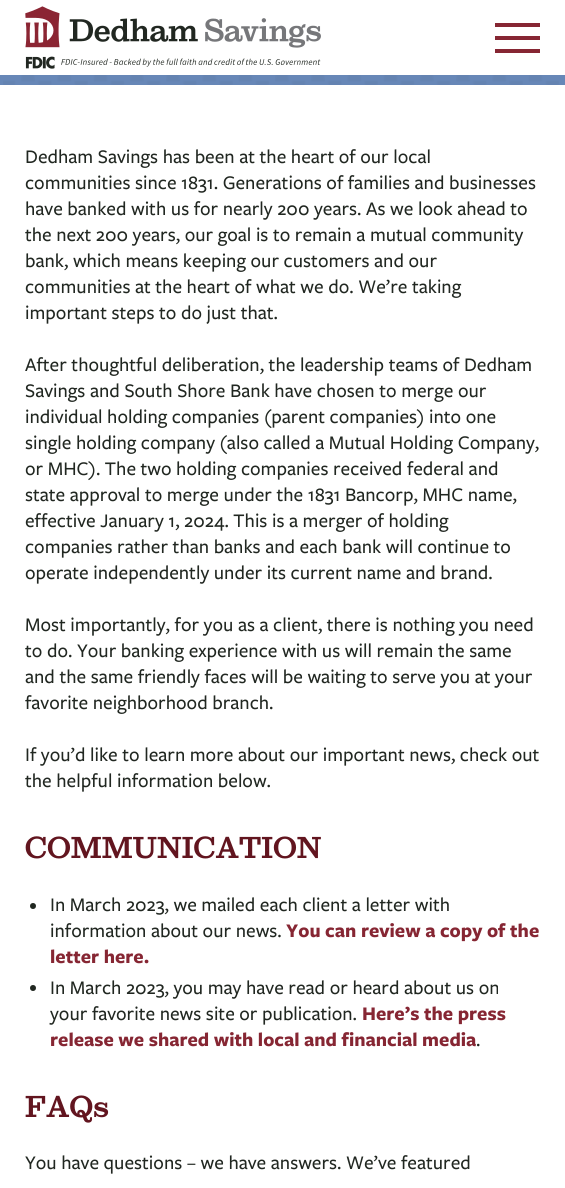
#include <cairo.h>
#include <math.h>
#include <stddef.h>


static void set_color(cairo_t *cr, unsigned color) {
    cairo_set_source_rgb(cr, (color >> 16) / 255.0, (color >> 8 & 255) / 255.0, (color & 255) / 255.0);
}

static void draw_text(cairo_t *cr, double x, double y, const char *s, const char *family, double size, int italic, int bold, unsigned color) {
    cairo_select_font_face(cr, family, italic ? CAIRO_FONT_SLANT_ITALIC : CAIRO_FONT_SLANT_NORMAL,
        bold ? CAIRO_FONT_WEIGHT_BOLD : CAIRO_FONT_WEIGHT_NORMAL);
    cairo_set_font_size(cr, size);
    set_color(cr, color);
    cairo_move_to(cr, x, y);
    cairo_show_text(cr, s);
}

static void fill_rect(cairo_t *cr, double x, double y, double w, double h, unsigned color) {
    set_color(cr, color);
    cairo_rectangle(cr, x, y, w, h);
    cairo_fill(cr);
}

static void draw_image(cairo_t *cr, const char *path, double x, double y, double w, double h) {
    cairo_surface_t *image = cairo_image_surface_create_from_png(path);
    cairo_save(cr);
    cairo_set_source_surface(cr, image, x, y);
    cairo_rectangle(cr, x, y, w, h);
    cairo_fill(cr);
    cairo_restore(cr);
    cairo_surface_destroy(image);
}

int main(void) {
    cairo_surface_t *surface = cairo_image_surface_create(CAIRO_FORMAT_RGB24, 565, 1188);
    cairo_t *cr = cairo_create(surface);
    cairo_font_options_t *options = cairo_font_options_create();
    cairo_font_options_set_hint_metrics(options, CAIRO_HINT_METRICS_OFF);
    cairo_font_options_set_hint_style(options, CAIRO_HINT_STYLE_NONE);
    cairo_set_font_options(cr, options);
    cairo_set_miter_limit(cr, 4);
    set_color(cr, 0xFFFFFF);
    cairo_paint(cr);
    draw_image(cr, "assets/img1.png", 25, 6, 296, 63);
    fill_rect(cr, 495, 23, 45, 4, 0x862633);
    fill_rect(cr, 495, 49, 45, 4, 0x862633);
    fill_rect(cr, 495, 36, 45, 4, 0x862633);
    fill_rect(cr, 0, 75, 565, 10, 0x6787B7);
    draw_image(cr, "assets/img2.png", 3, 75, 556, 10);
    draw_text(cr, 25, 163, "Dedham Savings has been at the heart of our local", "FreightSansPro", 20, 0, 0, 0x212721);
    draw_text(cr, 25, 189, "communities since 1831. Generations of families and businesses", "FreightSansPro", 20, 0, 0, 0x212721);
    draw_text(cr, 25, 215, "have banked with us for nearly 200 years. As we look ahead to", "FreightSansPro", 20, 0, 0, 0x212721);
    draw_text(cr, 25, 241, "the next 200 years, our goal is to remain a mutual community", "FreightSansPro", 20, 0, 0, 0x212721);
    draw_text(cr, 25, 267, "bank, which means keeping our customers and our", "FreightSansPro", 20, 0, 0, 0x212721);
    draw_text(cr, 25, 293, "communities at the heart of what we do. We’re taking", "FreightSansPro", 20, 0, 0, 0x212721);
    draw_text(cr, 25, 319, "important steps to do just that.", "FreightSansPro", 20, 0, 0, 0x212721);
    draw_text(cr, 25, 371, "After thoughtful deliberation, the leadership teams of Dedham", "FreightSansPro", 20, 0, 0, 0x212721);
    draw_text(cr, 25, 397, "Savings and South Shore Bank have chosen to merge our", "FreightSansPro", 20, 0, 0, 0x212721);
    draw_text(cr, 25, 423, "individual holding companies (parent companies) into one", "FreightSansPro", 20, 0, 0, 0x212721);
    draw_text(cr, 25, 449, "single holding company (also called a Mutual Holding Company,", "FreightSansPro", 20, 0, 0, 0x212721);
    draw_text(cr, 25, 475, "or MHC). The two holding companies received federal and", "FreightSansPro", 20, 0, 0, 0x212721);
    draw_text(cr, 25, 501, "state approval to merge under the 1831 Bancorp, MHC name,", "FreightSansPro", 20, 0, 0, 0x212721);
    draw_text(cr, 25, 527, "effective January 1, 2024. This is a merger of holding", "FreightSansPro", 20, 0, 0, 0x212721);
    draw_text(cr, 25, 553, "companies rather than banks and each bank will continue to", "FreightSansPro", 20, 0, 0, 0x212721);
    draw_text(cr, 25, 579, "operate independently under its current name and brand.", "FreightSansPro", 20, 0, 0, 0x212721);
    draw_text(cr, 25, 631, "Most importantly, for you as a client, there is nothing you need", "FreightSansPro", 20, 0, 0, 0x212721);
    draw_text(cr, 25, 657, "to do. Your banking experience with us will remain the same", "FreightSansPro", 20, 0, 0, 0x212721);
    draw_text(cr, 25, 683, "and the same friendly faces will be waiting to serve you at your", "FreightSansPro", 20, 0, 0, 0x212721);
    draw_text(cr, 25, 709, "favorite neighborhood branch.", "FreightSansPro", 20, 0, 0, 0x212721);
    draw_text(cr, 25, 761, "If you’d like to learn more about our important news, check out", "FreightSansPro", 20, 0, 0, 0x212721);
    draw_text(cr, 25, 787, "the helpful information below.", "FreightSansPro", 20, 0, 0, 0x212721);
    draw_text(cr, 25, 858, "COMMUNICATION", "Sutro", 30, 0, 0, 0x62151F);
    set_color(cr, 0x212721);
    cairo_new_path(cr);
    cairo_arc(cr, 33, 906, 3, 0, 2 * M_PI);
    cairo_fill(cr);
    draw_text(cr, 50, 911, "In March 2023, we mailed each client a letter with", "FreightSansPro", 20, 0, 0, 0x212721);
    draw_text(cr, 50, 937, "information about our news.", "FreightSansPro", 20, 0, 0, 0x212721);
    draw_text(cr, 286, 937, "You can review a copy of the", "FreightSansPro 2", 20, 0, 0, 0x862633);
    draw_text(cr, 50, 963, "letter here.", "FreightSansPro 2", 20, 0, 0, 0x862633);
    set_color(cr, 0x212721);
    cairo_new_path(cr);
    cairo_arc(cr, 33, 988, 3, 0, 2 * M_PI);
    cairo_fill(cr);
    draw_text(cr, 50, 994, "In March 2023, you may have read or heard about us on", "FreightSansPro", 20, 0, 0, 0x212721);
    draw_text(cr, 50, 1020, "your favorite news site or publication.", "FreightSansPro", 20, 0, 0, 0x212721);
    draw_text(cr, 362, 1020, "Here’s the press", "FreightSansPro 2", 20, 0, 0, 0x862633);
    draw_text(cr, 50, 1046, "release we shared with local and financial media", "FreightSansPro 2", 20, 0, 0, 0x862633);
    draw_text(cr, 476, 1046, ".", "FreightSansPro", 20, 0, 0, 0x212721);
    draw_text(cr, 25, 1117, "FAQs", "Sutro", 30, 0, 0, 0x62151F);
    draw_text(cr, 25, 1169, "You have questions – we have answers. We’ve featured", "FreightSansPro", 20, 0, 0, 0x212721);
    cairo_surface_write_to_png(surface, "output.png");
    cairo_font_options_destroy(options);
    cairo_destroy(cr);
    cairo_surface_destroy(surface);
    return 0;
}
